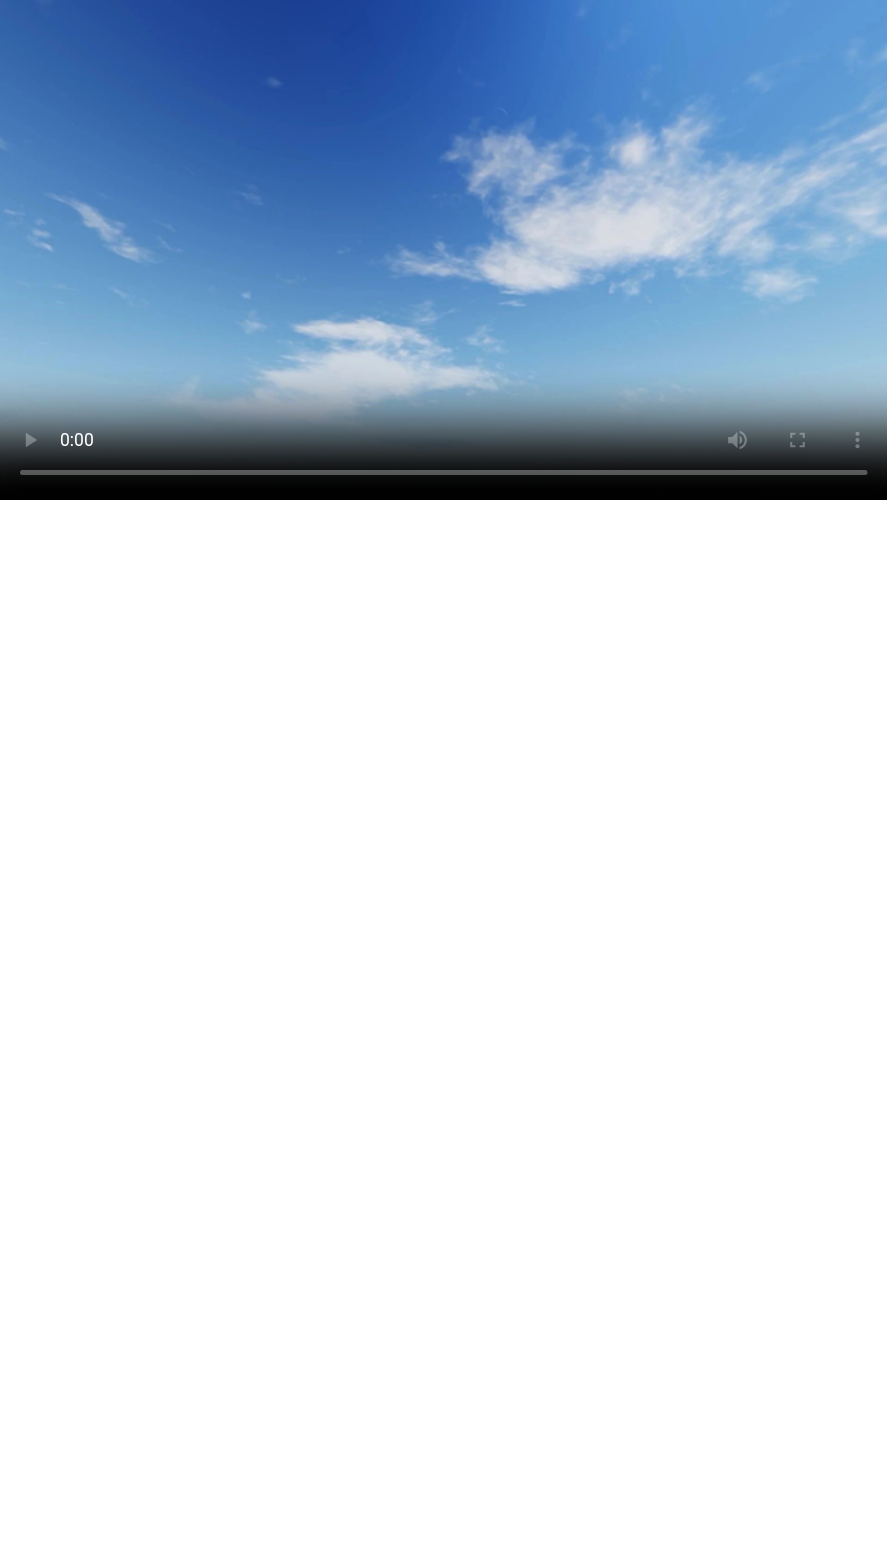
#include <cairo.h>
#include <math.h>
#include <stddef.h>


static void set_color(cairo_t *cr, unsigned color) {
    cairo_set_source_rgb(cr, (color >> 16) / 255.0, (color >> 8 & 255) / 255.0, (color & 255) / 255.0);
}

static void draw_image(cairo_t *cr, const char *path, double x, double y, double w, double h) {
    cairo_surface_t *image = cairo_image_surface_create_from_png(path);
    cairo_save(cr);
    cairo_set_source_surface(cr, image, x, y);
    cairo_rectangle(cr, x, y, w, h);
    cairo_fill(cr);
    cairo_restore(cr);
    cairo_surface_destroy(image);
}

int main(void) {
    cairo_surface_t *surface = cairo_image_surface_create(CAIRO_FORMAT_RGB24, 887, 1560);
    cairo_t *cr = cairo_create(surface);
    cairo_font_options_t *options = cairo_font_options_create();
    cairo_font_options_set_hint_metrics(options, CAIRO_HINT_METRICS_OFF);
    cairo_font_options_set_hint_style(options, CAIRO_HINT_STYLE_NONE);
    cairo_set_font_options(cr, options);
    cairo_set_miter_limit(cr, 4);
    set_color(cr, 0xFFFFFF);
    cairo_paint(cr);
    draw_image(cr, "assets/img1.png", 0, 0, 887, 500);
    cairo_surface_write_to_png(surface, "output.png");
    cairo_font_options_destroy(options);
    cairo_destroy(cr);
    cairo_surface_destroy(surface);
    return 0;
}
